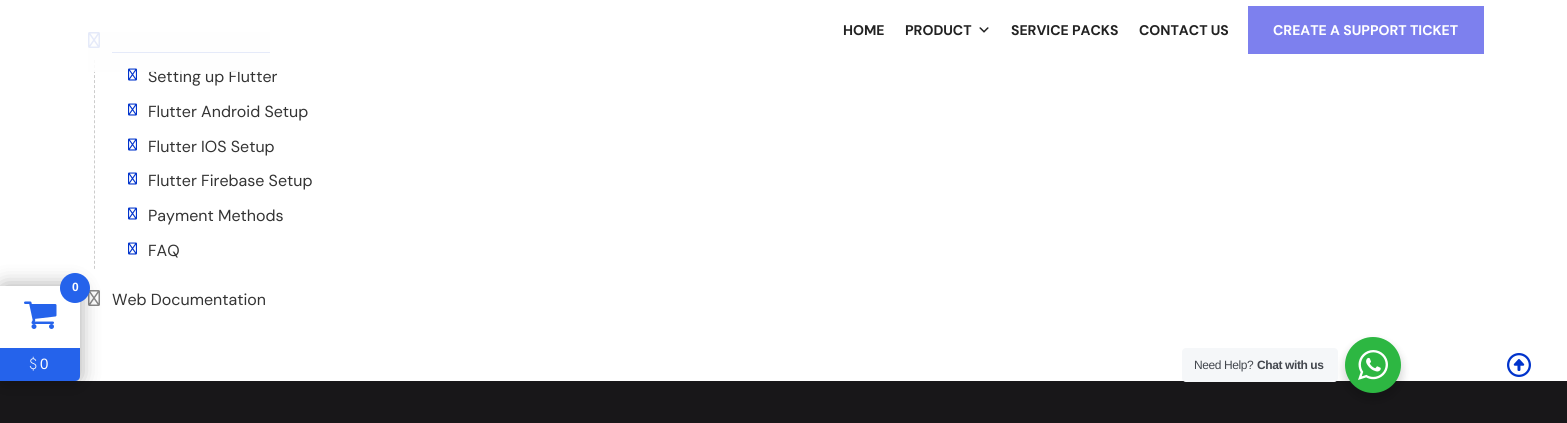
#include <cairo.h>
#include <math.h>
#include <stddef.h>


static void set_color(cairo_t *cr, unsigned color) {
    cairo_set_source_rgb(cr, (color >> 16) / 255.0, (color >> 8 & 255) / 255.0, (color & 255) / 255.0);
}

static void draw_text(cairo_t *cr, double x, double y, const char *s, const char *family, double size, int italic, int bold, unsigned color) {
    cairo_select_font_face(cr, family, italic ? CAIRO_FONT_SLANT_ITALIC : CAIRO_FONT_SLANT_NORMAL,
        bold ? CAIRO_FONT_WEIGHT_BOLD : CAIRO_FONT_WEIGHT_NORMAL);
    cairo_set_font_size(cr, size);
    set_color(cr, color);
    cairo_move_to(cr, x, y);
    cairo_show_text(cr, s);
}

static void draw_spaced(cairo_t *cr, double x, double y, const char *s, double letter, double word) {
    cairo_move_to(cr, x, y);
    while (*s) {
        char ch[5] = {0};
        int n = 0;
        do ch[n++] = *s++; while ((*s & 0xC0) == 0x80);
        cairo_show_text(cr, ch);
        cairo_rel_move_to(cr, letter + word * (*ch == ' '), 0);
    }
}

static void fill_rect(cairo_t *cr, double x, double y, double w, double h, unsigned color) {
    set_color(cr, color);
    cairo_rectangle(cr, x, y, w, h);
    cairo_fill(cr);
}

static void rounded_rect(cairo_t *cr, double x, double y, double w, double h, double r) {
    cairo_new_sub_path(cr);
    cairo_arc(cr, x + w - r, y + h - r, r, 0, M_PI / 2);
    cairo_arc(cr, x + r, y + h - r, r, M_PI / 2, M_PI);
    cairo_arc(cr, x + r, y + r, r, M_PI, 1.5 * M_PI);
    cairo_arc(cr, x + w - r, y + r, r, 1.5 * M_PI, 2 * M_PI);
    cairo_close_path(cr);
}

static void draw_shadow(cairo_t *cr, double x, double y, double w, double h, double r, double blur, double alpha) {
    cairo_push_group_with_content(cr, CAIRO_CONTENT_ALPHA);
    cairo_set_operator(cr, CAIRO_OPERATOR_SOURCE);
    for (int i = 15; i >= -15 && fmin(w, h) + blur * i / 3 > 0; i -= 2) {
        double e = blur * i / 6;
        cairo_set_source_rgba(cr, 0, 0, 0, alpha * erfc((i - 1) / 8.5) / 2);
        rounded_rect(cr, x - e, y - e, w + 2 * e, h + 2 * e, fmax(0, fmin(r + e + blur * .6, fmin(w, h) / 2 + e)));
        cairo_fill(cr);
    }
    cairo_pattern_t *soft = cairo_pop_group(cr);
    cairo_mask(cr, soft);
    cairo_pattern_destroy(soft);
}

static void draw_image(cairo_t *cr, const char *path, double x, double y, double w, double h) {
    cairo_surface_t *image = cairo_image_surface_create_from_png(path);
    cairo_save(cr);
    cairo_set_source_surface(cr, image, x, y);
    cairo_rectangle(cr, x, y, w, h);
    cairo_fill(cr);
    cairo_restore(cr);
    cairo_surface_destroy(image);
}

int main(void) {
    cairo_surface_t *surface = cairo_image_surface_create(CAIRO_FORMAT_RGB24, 1567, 423);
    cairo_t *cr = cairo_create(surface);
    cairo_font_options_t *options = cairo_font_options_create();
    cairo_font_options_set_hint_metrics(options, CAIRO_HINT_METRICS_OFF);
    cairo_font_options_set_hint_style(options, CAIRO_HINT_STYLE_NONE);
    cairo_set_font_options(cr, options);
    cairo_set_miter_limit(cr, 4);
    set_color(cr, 0xFFFFFF);
    cairo_paint(cr);
    draw_image(cr, "assets/img2.png", 88, 32, 12, 16);
    fill_rect(cr, 112, 52, 158, 1, 0x0033CC);
    cairo_new_path(cr);
    cairo_move_to(cr, 94.5, 60);
    cairo_line_to(cr, 94.5, 269);
    set_color(cr, 0xCCCCCC);
    cairo_set_line_width(cr, 1);
    cairo_set_dash(cr, (double[]){3, 2.02}, 2, 0);
    cairo_stroke(cr);
    draw_text(cr, 148, 82, "Setting up Flutter", "DM Sans", 16, 0, 0, 0x333333);
    cairo_set_source_rgba(cr, 0.996, 0.996, 0.996, 0.9);
    cairo_rectangle(cr, 88, 32, 182, 40);
    cairo_fill(cr);
    draw_text(cr, 843, 35, "HOME", "DM Sans", 14, 0, 1, 0x222222);
    draw_text(cr, 905, 35, "PRODUCT", "DM Sans", 14, 0, 1, 0x222222);
    draw_image(cr, "assets/img1.png", 979, 27, 10, 6);
    draw_text(cr, 1011, 35, "SERVICE PACKS", "DM Sans", 14, 0, 1, 0x222222);
    draw_text(cr, 1139, 35, "CONTACT US", "DM Sans", 14, 0, 1, 0x222222);
    fill_rect(cr, 1248, 6, 236, 48, 0x7D80EE);
    draw_text(cr, 1273, 35, "CREATE A SUPPORT TICKET", "DM Sans", 14, 0, 1, 0xFFFFFF);
    draw_image(cr, "assets/img3.png", 128, 68, 9, 13);
    draw_image(cr, "assets/img4.png", 128, 103, 9, 13);
    draw_text(cr, 148, 117, "Flutter Android Setup", "DM Sans", 16, 0, 0, 0x333333);
    draw_image(cr, "assets/img4.png", 128, 138, 9, 13);
    draw_text(cr, 148, 152, "Flutter IOS Setup", "DM Sans", 16, 0, 0, 0x333333);
    draw_image(cr, "assets/img4.png", 128, 172, 9, 13);
    draw_text(cr, 148, 186, "Flutter Firebase Setup", "DM Sans", 16, 0, 0, 0x333333);
    draw_image(cr, "assets/img4.png", 128, 207, 9, 13);
    draw_text(cr, 148, 221, "Payment Methods", "DM Sans", 16, 0, 0, 0x333333);
    draw_image(cr, "assets/img4.png", 128, 242, 9, 13);
    draw_text(cr, 148, 256, "FAQ", "DM Sans", 16, 0, 0, 0x333333);
    draw_image(cr, "assets/img5.png", 88, 290, 12, 16);
    draw_text(cr, 112, 305, "Web Documentation", "DM Sans", 16, 0, 0, 0x333333);
    fill_rect(cr, 0, 381, 1567, 42, 0x181719);
    set_color(cr, 0x000000);
    draw_shadow(cr, 0, 286, 80, 95, 5, 10, 0.35);
    set_color(cr, 0x2563EB);
    cairo_new_path(cr);
    cairo_move_to(cr, 0, 286);
    cairo_line_to(cr, 75, 286);
    cairo_curve_to(cr, 78, 286, 80, 288, 80, 291);
    cairo_line_to(cr, 80, 376);
    cairo_curve_to(cr, 80, 379, 78, 381, 75, 381);
    cairo_line_to(cr, 0, 381);
    cairo_close_path(cr);
    cairo_fill(cr);
    fill_rect(cr, 0, 286, 80, 62, 0xFFFFFF);
    set_color(cr, 0x2563EB);
    cairo_arc(cr, 75, 288, 15, 0, 2 * M_PI);
    cairo_fill(cr);
    draw_text(cr, 72, 291, "0", "Liberation Sans", 12, 0, 1, 0xFFFFFF);
    draw_image(cr, "assets/img6.png", 24, 301, 33, 28);
    draw_text(cr, 29, 369, "$", "Jost Light", 15, 0, 0, 0xFFFFFF);
    draw_text(cr, 40, 369, "0", "Liberation Sans", 15, 0, 0, 0xFFFFFF);
    set_color(cr, 0x000000);
    draw_shadow(cr, 1343, 341, 60, 60, 30, 4, 0.14);
    set_color(cr, 0xF5F7F9);
    rounded_rect(cr, 1182, 348, 156, 34, 4);
    cairo_fill(cr);
    cairo_set_font_size(cr, 12);
    set_color(cr, 0x43474E);
    draw_spaced(cr, 1194, 369, "Need Help?", -0.4, 0);
    cairo_select_font_face(cr, "Liberation Sans", CAIRO_FONT_SLANT_NORMAL, CAIRO_FONT_WEIGHT_BOLD);
    draw_spaced(cr, 1257, 369, "Chat with us", -0.4, 0);
    set_color(cr, 0x2DB742);
    cairo_new_path(cr);
    cairo_arc(cr, 1373, 365, 28, 0, 2 * M_PI);
    cairo_fill(cr);
    draw_image(cr, "assets/img7.png", 1358, 350, 30, 30);
    draw_image(cr, "assets/img8.png", 1507, 353, 24, 24);
    cairo_surface_write_to_png(surface, "output.png");
    cairo_font_options_destroy(options);
    cairo_destroy(cr);
    cairo_surface_destroy(surface);
    return 0;
}
